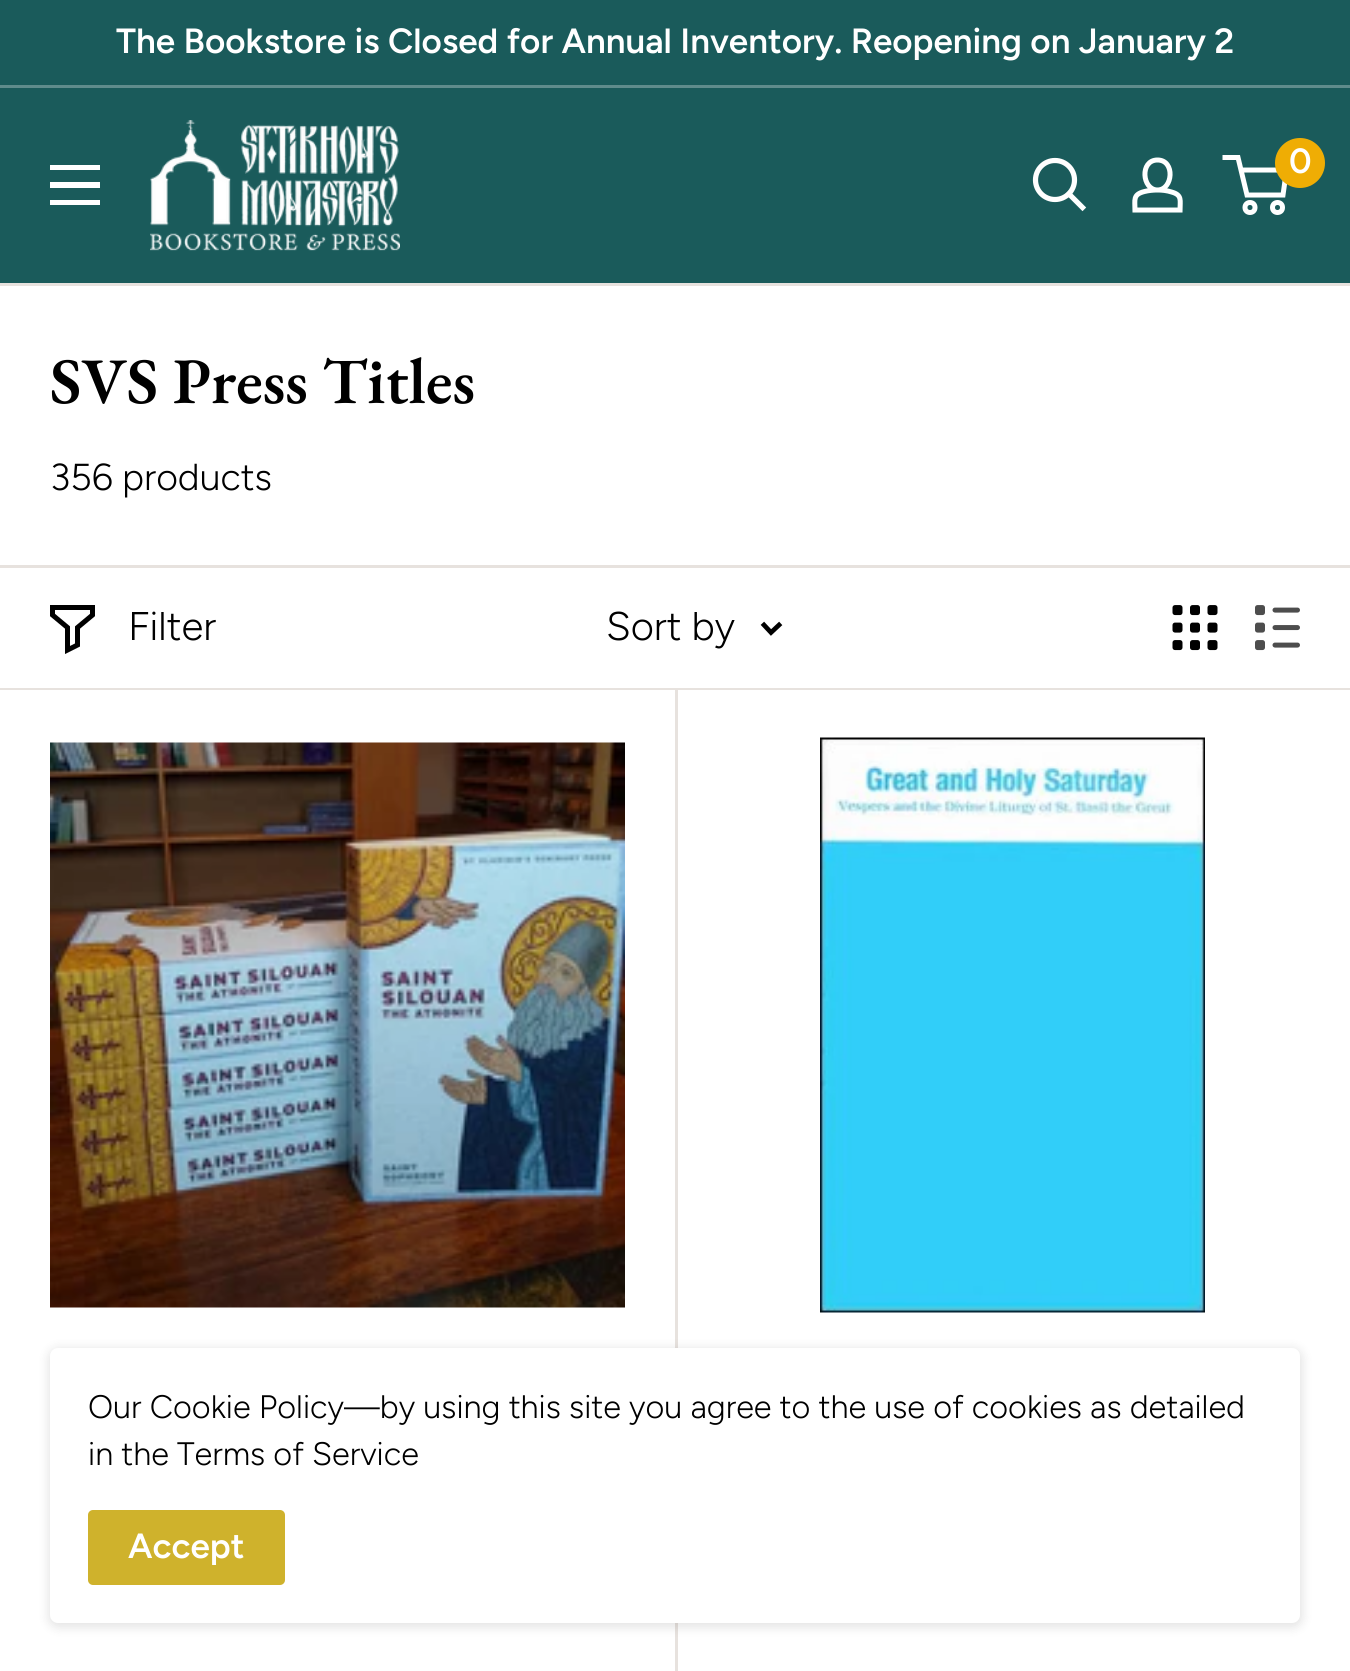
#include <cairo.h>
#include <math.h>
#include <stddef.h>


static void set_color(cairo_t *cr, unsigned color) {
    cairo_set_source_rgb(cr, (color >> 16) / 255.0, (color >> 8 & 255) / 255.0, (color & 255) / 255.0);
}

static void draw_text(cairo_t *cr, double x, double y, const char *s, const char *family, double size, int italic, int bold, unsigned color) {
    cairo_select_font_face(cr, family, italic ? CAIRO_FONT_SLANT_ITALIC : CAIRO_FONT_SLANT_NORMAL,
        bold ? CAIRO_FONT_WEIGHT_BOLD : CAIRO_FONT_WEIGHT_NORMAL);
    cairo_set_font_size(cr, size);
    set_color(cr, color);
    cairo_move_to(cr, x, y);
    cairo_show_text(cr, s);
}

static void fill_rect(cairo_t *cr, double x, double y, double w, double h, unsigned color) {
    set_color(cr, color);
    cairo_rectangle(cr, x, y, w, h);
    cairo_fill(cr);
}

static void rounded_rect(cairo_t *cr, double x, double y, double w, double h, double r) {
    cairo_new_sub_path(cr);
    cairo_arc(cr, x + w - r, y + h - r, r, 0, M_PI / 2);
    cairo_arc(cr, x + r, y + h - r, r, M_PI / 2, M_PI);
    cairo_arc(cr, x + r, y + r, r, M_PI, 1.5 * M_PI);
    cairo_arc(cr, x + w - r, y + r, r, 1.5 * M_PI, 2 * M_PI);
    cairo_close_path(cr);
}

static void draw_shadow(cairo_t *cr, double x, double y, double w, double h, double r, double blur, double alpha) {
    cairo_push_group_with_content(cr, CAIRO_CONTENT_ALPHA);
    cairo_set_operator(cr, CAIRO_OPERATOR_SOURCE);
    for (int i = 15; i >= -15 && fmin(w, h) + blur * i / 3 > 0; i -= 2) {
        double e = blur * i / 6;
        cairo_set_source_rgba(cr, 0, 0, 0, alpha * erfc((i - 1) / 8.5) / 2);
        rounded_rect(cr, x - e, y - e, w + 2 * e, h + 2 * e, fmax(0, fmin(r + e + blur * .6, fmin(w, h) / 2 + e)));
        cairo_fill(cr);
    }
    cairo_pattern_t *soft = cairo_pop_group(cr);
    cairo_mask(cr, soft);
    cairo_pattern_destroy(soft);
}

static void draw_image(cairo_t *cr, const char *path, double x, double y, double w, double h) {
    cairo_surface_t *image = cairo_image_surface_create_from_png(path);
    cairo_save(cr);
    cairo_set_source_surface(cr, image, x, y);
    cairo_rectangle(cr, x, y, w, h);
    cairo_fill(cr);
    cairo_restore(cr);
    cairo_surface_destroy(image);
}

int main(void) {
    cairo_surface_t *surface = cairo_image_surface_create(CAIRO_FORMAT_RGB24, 1350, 1671);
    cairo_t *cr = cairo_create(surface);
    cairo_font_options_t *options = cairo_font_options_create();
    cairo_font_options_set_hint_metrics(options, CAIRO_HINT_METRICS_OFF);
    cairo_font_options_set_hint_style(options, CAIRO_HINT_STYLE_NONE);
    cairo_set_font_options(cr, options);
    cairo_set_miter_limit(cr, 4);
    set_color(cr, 0x1A5B5B);
    cairo_paint(cr);
    fill_rect(cr, 0, 85, 1350, 3, 0x5F8C8C);
    draw_text(cr, 116, 53, "The Bookstore is Closed for Annual Inventory. Reopening on January 2", "Figtree SemiBold", 35, 0, 0, 0xFFFFFF);
    draw_image(cr, "assets/img1.png", 150, 120, 250, 131);
    cairo_new_path(cr);
    cairo_move_to(cr, 1082.5, 207.5);
    cairo_line_to(cr, 1069, 194);
    cairo_set_line_width(cr, 5.2);
    cairo_set_line_cap(cr, CAIRO_LINE_CAP_SQUARE);
    cairo_stroke(cr);
    cairo_arc(cr, 1055, 180, 19.5, 0, 2 * M_PI);
    cairo_set_line_cap(cr, CAIRO_LINE_CAP_BUTT);
    cairo_stroke(cr);
    cairo_new_path(cr);
    cairo_move_to(cr, 1157.5, 190);
    cairo_curve_to(cr, 1162, 190, 1167, 190.5, 1171.5, 192);
    cairo_curve_to(cr, 1182.5, 195, 1180, 200.5, 1180, 210);
    cairo_line_to(cr, 1135, 210);
    cairo_curve_to(cr, 1135, 200, 1132.5, 194.5, 1144.5, 191.5);
    cairo_curve_to(cr, 1148.5, 190.5, 1153, 190, 1157.5, 190);
    cairo_close_path(cr);
    cairo_move_to(cr, 1157.5, 190);
    cairo_curve_to(cr, 1142, 190, 1139.5, 160, 1157.5, 160);
    cairo_curve_to(cr, 1175.5, 160, 1173, 190, 1157.5, 190);
    cairo_close_path(cr);
    cairo_set_line_width(cr, 5);
    cairo_stroke(cr);
    cairo_arc(cr, 1250, 207.5, 5, 0, 2 * M_PI);
    cairo_stroke(cr);
    cairo_arc(cr, 1277.5, 207.5, 5, 0, 2 * M_PI);
    cairo_stroke(cr);
    cairo_new_path(cr);
    cairo_move_to(cr, 1241, 170);
    cairo_line_to(cr, 1286.5, 170);
    cairo_line_to(cr, 1283, 195);
    cairo_line_to(cr, 1247, 195);
    cairo_line_to(cr, 1238, 157.5);
    cairo_line_to(cr, 1222.5, 157.5);
    cairo_stroke(cr);
    set_color(cr, 0xEFAD04);
    cairo_arc(cr, 1300, 163, 25, 0, 2 * M_PI);
    cairo_fill(cr);
    draw_text(cr, 1289, 173, "0", "Figtree SemiBold", 35, 0, 0, 0xFFFFFF);
    cairo_set_fill_rule(cr, CAIRO_FILL_RULE_EVEN_ODD);
    cairo_new_path(cr);
    cairo_move_to(cr, 50, 200);
    cairo_line_to(cr, 100, 200);
    cairo_line_to(cr, 100, 205);
    cairo_line_to(cr, 50, 205);
    cairo_close_path(cr);
    cairo_move_to(cr, 50, 165);
    cairo_line_to(cr, 100, 165);
    cairo_line_to(cr, 100, 170);
    cairo_line_to(cr, 50, 170);
    cairo_close_path(cr);
    cairo_move_to(cr, 50, 182);
    cairo_line_to(cr, 100, 182);
    cairo_line_to(cr, 100, 188);
    cairo_line_to(cr, 50, 188);
    cairo_close_path(cr);
    cairo_fill(cr);
    fill_rect(cr, 0, 286, 1350, 1385, 0xFFFFFF);
    fill_rect(cr, 0, 283, 1350, 3, 0xE7E2DE);
    draw_text(cr, 50, 403, "SVS Press Titles", "EB Garamond SemiBold", 65, 0, 0, 0x000000);
    draw_text(cr, 50, 490, "356 products", "Figtree Light", 37.5, 0, 0, 0x000000);
    fill_rect(cr, 0, 565, 1350, 3, 0xE7E2DE);
    fill_rect(cr, 675, 688, 3, 983, 0xE7E2DE);
    fill_rect(cr, 0, 688, 1350, 2, 0xE7E2DE);
    cairo_new_path(cr);
    cairo_move_to(cr, 92.5, 615);
    cairo_line_to(cr, 77.5, 627.5);
    cairo_line_to(cr, 77.5, 645);
    cairo_line_to(cr, 67.5, 650);
    cairo_line_to(cr, 67.5, 627.5);
    cairo_line_to(cr, 52.5, 615);
    cairo_line_to(cr, 52.5, 607.5);
    cairo_line_to(cr, 92.5, 607.5);
    cairo_close_path(cr);
    set_color(cr, 0x000000);
    cairo_set_line_cap(cr, CAIRO_LINE_CAP_SQUARE);
    cairo_stroke(cr);
    draw_text(cr, 128, 640, "Filter", "Figtree Light", 40, 0, 0, 0x000000);
    draw_text(cr, 606, 640, "Sort by", "Figtree Light", 40, 0, 0, 0x000000);
    cairo_new_path(cr);
    cairo_move_to(cr, 779, 625);
    cairo_line_to(cr, 771, 632.5);
    cairo_line_to(cr, 764, 625);
    cairo_set_line_width(cr, 4.7);
    cairo_stroke(cr);
    draw_image(cr, "assets/img2.png", 1172, 605, 46, 46);
    draw_image(cr, "assets/img3.png", 1255, 605, 45, 46);
    draw_image(cr, "assets/img4.png", 50, 742, 575, 566);
    draw_image(cr, "assets/img5.png", 820, 737, 385, 576);
    set_color(cr, 0x000000);
    draw_shadow(cr, 48, 1348, 1255, 280, 10, 5, 0.1);
    set_color(cr, 0xFFFFFF);
    rounded_rect(cr, 50, 1348, 1250, 275, 8);
    cairo_fill(cr);
    draw_text(cr, 88, 1418, "Our Cookie Policy—by using this site you agree to the use of cookies as detailed", "Figtree Light", 32.5, 0, 0, 0x000000);
    draw_text(cr, 88, 1465, "in the Terms of Service", "Figtree Light", 32.5, 0, 0, 0x000000);
    set_color(cr, 0xCFB22C);
    rounded_rect(cr, 88, 1510, 197, 75, 5);
    cairo_fill(cr);
    draw_text(cr, 128, 1558, "Accept", "Figtree SemiBold", 35, 0, 0, 0xFFFFFF);
    cairo_surface_write_to_png(surface, "output.png");
    cairo_font_options_destroy(options);
    cairo_destroy(cr);
    cairo_surface_destroy(surface);
    return 0;
}
